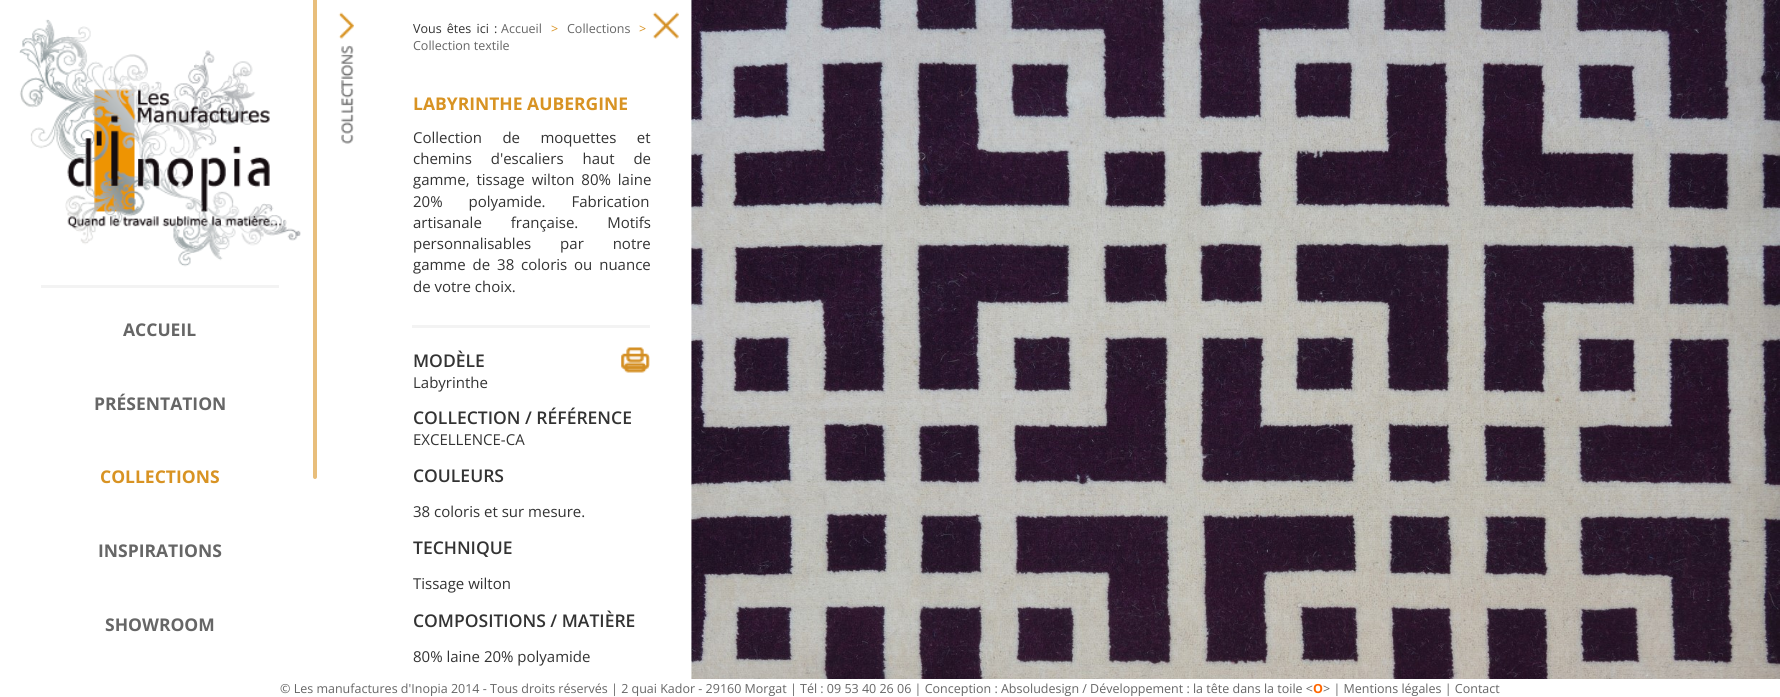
#include <cairo.h>
#include <math.h>
#include <stddef.h>


static void set_color(cairo_t *cr, unsigned color) {
    cairo_set_source_rgb(cr, (color >> 16) / 255.0, (color >> 8 & 255) / 255.0, (color & 255) / 255.0);
}

static void draw_text(cairo_t *cr, double x, double y, const char *s, const char *family, double size, int italic, int bold, unsigned color) {
    cairo_select_font_face(cr, family, italic ? CAIRO_FONT_SLANT_ITALIC : CAIRO_FONT_SLANT_NORMAL,
        bold ? CAIRO_FONT_WEIGHT_BOLD : CAIRO_FONT_WEIGHT_NORMAL);
    cairo_set_font_size(cr, size);
    set_color(cr, color);
    cairo_move_to(cr, x, y);
    cairo_show_text(cr, s);
}

static void draw_spaced(cairo_t *cr, double x, double y, const char *s, double letter, double word) {
    cairo_move_to(cr, x, y);
    while (*s) {
        char ch[5] = {0};
        int n = 0;
        do ch[n++] = *s++; while ((*s & 0xC0) == 0x80);
        cairo_show_text(cr, ch);
        cairo_rel_move_to(cr, letter + word * (*ch == ' '), 0);
    }
}

static void fill_rect(cairo_t *cr, double x, double y, double w, double h, unsigned color) {
    set_color(cr, color);
    cairo_rectangle(cr, x, y, w, h);
    cairo_fill(cr);
}

static void rounded_rect(cairo_t *cr, double x, double y, double w, double h, double r) {
    cairo_new_sub_path(cr);
    cairo_arc(cr, x + w - r, y + h - r, r, 0, M_PI / 2);
    cairo_arc(cr, x + r, y + h - r, r, M_PI / 2, M_PI);
    cairo_arc(cr, x + r, y + r, r, M_PI, 1.5 * M_PI);
    cairo_arc(cr, x + w - r, y + r, r, 1.5 * M_PI, 2 * M_PI);
    cairo_close_path(cr);
}

static void draw_image(cairo_t *cr, const char *path, double x, double y, double w, double h) {
    cairo_surface_t *image = cairo_image_surface_create_from_png(path);
    cairo_save(cr);
    cairo_set_source_surface(cr, image, x, y);
    cairo_rectangle(cr, x, y, w, h);
    cairo_fill(cr);
    cairo_restore(cr);
    cairo_surface_destroy(image);
}

int main(void) {
    cairo_surface_t *surface = cairo_image_surface_create(CAIRO_FORMAT_RGB24, 1780, 697);
    cairo_t *cr = cairo_create(surface);
    cairo_font_options_t *options = cairo_font_options_create();
    cairo_font_options_set_hint_metrics(options, CAIRO_HINT_METRICS_OFF);
    cairo_font_options_set_hint_style(options, CAIRO_HINT_STYLE_NONE);
    cairo_set_font_options(cr, options);
    cairo_set_miter_limit(cr, 4);
    set_color(cr, 0xFFFFFF);
    cairo_paint(cr);
    draw_image(cr, "assets/img1.png", 19, 19, 282, 248);
    fill_rect(cr, 41, 285, 238, 3, 0xF3F3F3);
    draw_text(cr, 123, 336, "ACCUEIL", "Open Sans", 17.5, 0, 1, 0x666666);
    draw_text(cr, 94, 410, "PRÉSENTATION", "Open Sans", 17.5, 0, 1, 0x666666);
    draw_text(cr, 100, 483, "COLLECTIONS", "Open Sans", 17.5, 0, 1, 0xD89323);
    draw_text(cr, 98, 557, "INSPIRATIONS", "Open Sans", 17.5, 0, 1, 0x666666);
    draw_text(cr, 105, 631, "SHOWROOM", "Open Sans", 17.5, 0, 1, 0x666666);
    set_color(cr, 0xE8BE7B);
    rounded_rect(cr, 313, -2, 4, 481, 2);
    cairo_fill(cr);
    draw_image(cr, "assets/img2.png", 338, 12, 16, 27);
    draw_image(cr, "assets/img3.png", 341, 45, 13, 99);
    cairo_select_font_face(cr, "Open Sans", CAIRO_FONT_SLANT_NORMAL, CAIRO_FONT_WEIGHT_NORMAL);
    cairo_set_font_size(cr, 12.5);
    set_color(cr, 0x333333);
    draw_spaced(cr, 413, 33, "Vous êtes ici :", 0, 2);
    draw_text(cr, 501, 33, "Accueil", "Open Sans", 12.5, 0, 0, 0x666666);
    draw_text(cr, 551, 33, ">", "Open Sans", 12.5, 0, 0, 0xD89323);
    draw_text(cr, 567, 33, "Collections", "Open Sans", 12.5, 0, 0, 0x666666);
    draw_text(cr, 639, 33, ">", "Open Sans", 12.5, 0, 0, 0xD89323);
    draw_text(cr, 413, 50, "Collection textile", "Open Sans", 12.5, 0, 0, 0x666666);
    draw_text(cr, 413, 110, "LABYRINTHE AUBERGINE", "Open Sans", 17.5, 0, 1, 0xD89323);
    cairo_select_font_face(cr, "Open Sans", CAIRO_FONT_SLANT_NORMAL, CAIRO_FONT_WEIGHT_NORMAL);
    cairo_set_font_size(cr, 15);
    set_color(cr, 0x333333);
    draw_spaced(cr, 413, 143, "Collection de moquettes et", 0, 16.5);
    draw_spaced(cr, 413, 164, "chemins d'escaliers haut de", 0, 15);
    draw_spaced(cr, 413, 185, "gamme, tissage wilton 80% laine", 0, 3);
    draw_spaced(cr, 413, 207, "20% polyamide. Fabrication", 0, 22);
    draw_spaced(cr, 413, 228, "artisanale française. Motifs", 0, 25);
    draw_spaced(cr, 413, 249, "personnalisables par notre", 0, 25);
    draw_spaced(cr, 413, 270, "gamme de 38 coloris ou nuance", 0, 3);
    draw_text(cr, 413, 292, "de votre choix.", "Open Sans", 15, 0, 0, 0x333333);
    fill_rect(cr, 412, 325, 238, 3, 0xF3F3F3);
    draw_text(cr, 413, 367, "MODÈLE", "Open Sans SemiBold", 17.5, 0, 0, 0x333333);
    draw_image(cr, "assets/img4.png", 621, 347, 29, 26);
    draw_text(cr, 413, 388, "Labyrinthe", "Open Sans", 15, 0, 0, 0x333333);
    draw_text(cr, 413, 424, "COLLECTION / RÉFÉRENCE", "Open Sans SemiBold", 17.5, 0, 0, 0x333333);
    draw_text(cr, 413, 445, "EXCELLENCE-CA", "Open Sans", 15, 0, 0, 0x333333);
    draw_text(cr, 413, 482, "COULEURS", "Open Sans SemiBold", 17.5, 0, 0, 0x333333);
    draw_text(cr, 413, 517, "38 coloris et sur mesure.", "Open Sans", 15, 0, 0, 0x333333);
    draw_text(cr, 413, 554, "TECHNIQUE", "Open Sans SemiBold", 17.5, 0, 0, 0x333333);
    draw_text(cr, 413, 589, "Tissage wilton", "Open Sans", 15, 0, 0, 0x333333);
    draw_text(cr, 413, 627, "COMPOSITIONS / MATIÈRE", "Open Sans SemiBold", 17.5, 0, 0, 0x333333);
    draw_text(cr, 413, 662, "80% laine 20% polyamide", "Open Sans", 15, 0, 0, 0x333333);
    draw_image(cr, "assets/img5.png", 652, 12, 27, 27);
    draw_image(cr, "assets/img6.png", 691, 0, 1089, 679);
    draw_text(cr, 280, 693, "© Les manufactures d'Inopia 2014 - Tous droits réservés | 2 quai Kador - 29160 Morgat | Tél : 09 53 40 26 06 | Conception : Absoludesign / Développement : la tête dans la toile <", "Open Sans", 12.5, 0, 0, 0x666666);
    draw_text(cr, 1313, 693, "O", "Open Sans", 12.5, 0, 1, 0xFF6600);
    draw_text(cr, 1323, 693, "> | Mentions légales | Contact", "Open Sans", 12.5, 0, 0, 0x666666);
    cairo_surface_write_to_png(surface, "output.png");
    cairo_font_options_destroy(options);
    cairo_destroy(cr);
    cairo_surface_destroy(surface);
    return 0;
}
